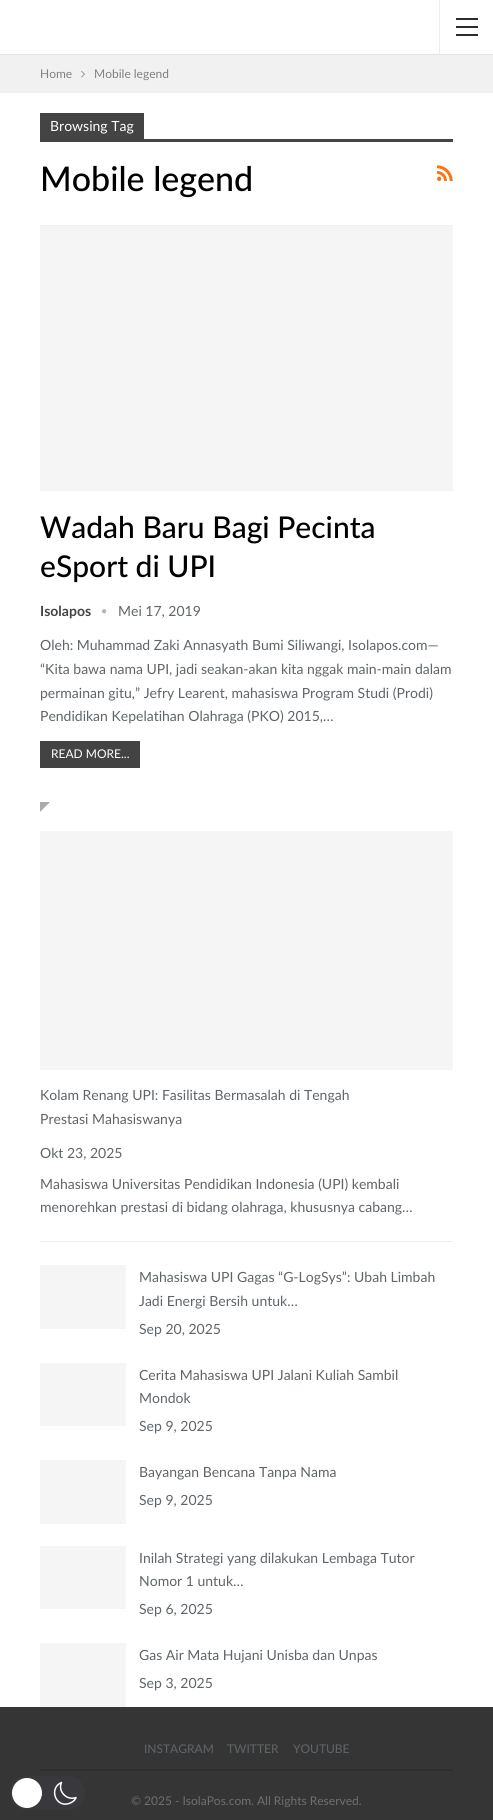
#include <cairo.h>
#include <math.h>
#include <stddef.h>


static void set_color(cairo_t *cr, unsigned color) {
    cairo_set_source_rgb(cr, (color >> 16) / 255.0, (color >> 8 & 255) / 255.0, (color & 255) / 255.0);
}

static void draw_text(cairo_t *cr, double x, double y, const char *s, const char *family, double size, int italic, int bold, unsigned color) {
    cairo_select_font_face(cr, family, italic ? CAIRO_FONT_SLANT_ITALIC : CAIRO_FONT_SLANT_NORMAL,
        bold ? CAIRO_FONT_WEIGHT_BOLD : CAIRO_FONT_WEIGHT_NORMAL);
    cairo_set_font_size(cr, size);
    set_color(cr, color);
    cairo_move_to(cr, x, y);
    cairo_show_text(cr, s);
}

static void fill_rect(cairo_t *cr, double x, double y, double w, double h, unsigned color) {
    set_color(cr, color);
    cairo_rectangle(cr, x, y, w, h);
    cairo_fill(cr);
}

static void rounded_rect(cairo_t *cr, double x, double y, double w, double h, double r) {
    cairo_new_sub_path(cr);
    cairo_arc(cr, x + w - r, y + h - r, r, 0, M_PI / 2);
    cairo_arc(cr, x + r, y + h - r, r, M_PI / 2, M_PI);
    cairo_arc(cr, x + r, y + r, r, M_PI, 1.5 * M_PI);
    cairo_arc(cr, x + w - r, y + r, r, 1.5 * M_PI, 2 * M_PI);
    cairo_close_path(cr);
}

static void draw_image(cairo_t *cr, const char *path, double x, double y, double w, double h) {
    cairo_surface_t *image = cairo_image_surface_create_from_png(path);
    cairo_save(cr);
    cairo_set_source_surface(cr, image, x, y);
    cairo_rectangle(cr, x, y, w, h);
    cairo_fill(cr);
    cairo_restore(cr);
    cairo_surface_destroy(image);
}

int main(void) {
    cairo_surface_t *surface = cairo_image_surface_create(CAIRO_FORMAT_RGB24, 493, 1820);
    cairo_t *cr = cairo_create(surface);
    cairo_font_options_t *options = cairo_font_options_create();
    cairo_font_options_set_hint_metrics(options, CAIRO_HINT_METRICS_OFF);
    cairo_font_options_set_hint_style(options, CAIRO_HINT_STYLE_NONE);
    cairo_set_font_options(cr, options);
    cairo_set_miter_limit(cr, 4);
    set_color(cr, 0xFFFFFF);
    cairo_paint(cr);
    fill_rect(cr, 0, 54, 493, 1, 0xE5E5E5);
    fill_rect(cr, 439, 0, 1, 54, 0xEDEDED);
    fill_rect(cr, 456, 26, 22, 2, 0x2C2C2C);
    fill_rect(cr, 456, 18, 22, 2, 0x2C2C2C);
    fill_rect(cr, 456, 34, 22, 2, 0x2C2C2C);
    fill_rect(cr, 0, 55, 493, 38, 0xF1F1F1);
    draw_text(cr, 40, 78, "Home", "Lato", 12, 0, 0, 0x808080);
    draw_image(cr, "assets/img1.png", 81, 70, 4, 8);
    draw_text(cr, 94, 78, "Mobile legend", "Lato", 12, 0, 0, 0x808080);
    fill_rect(cr, 40, 225, 413, 1, 0xF0F0F0);
    fill_rect(cr, 40, 113, 104, 26, 0x444444);
    draw_text(cr, 50, 131, "Browsing Tag", "Lato", 14, 0, 0, 0xFFFFFF);
    fill_rect(cr, 40, 139, 413, 3, 0x444444);
    draw_text(cr, 40, 191, "Mobile legend", "Lato Medium", 34, 0, 0, 0x000000);
    draw_image(cr, "assets/img2.png", 437, 165, 16, 16);
    fill_rect(cr, 40, 226, 413, 265, 0xF5F5F5);
    draw_text(cr, 40, 538, "Wadah Baru Bagi Pecinta", "Lato Medium", 30, 0, 0, 0x000000);
    draw_text(cr, 40, 577, "eSport di UPI", "Lato Medium", 30, 0, 0, 0x000000);
    draw_text(cr, 40, 616, "Isolapos", "Lato", 14, 0, 1, 0x444444);
    draw_image(cr, "assets/img3.png", 102, 609, 5, 5);
    draw_text(cr, 118, 616, "Mei 17, 2019", "Lato", 14, 0, 0, 0x5F6569);
    draw_text(cr, 40, 650, "Oleh: Muhammad Zaki Annasyath Bumi Siliwangi, Isolapos.com—", "Lato", 14, 0, 0, 0x5F6569);
    draw_text(cr, 40, 674, "“Kita bawa nama UPI, jadi seakan-akan kita nggak main-main dalam", "Lato", 14, 0, 0, 0x5F6569);
    draw_text(cr, 40, 698, "permainan gitu,” Jefry Learent, mahasiswa Program Studi (Prodi)", "Lato", 14, 0, 0, 0x5F6569);
    draw_text(cr, 40, 721, "Pendidikan Kepelatihan Olahraga (PKO) 2015,…", "Lato", 14, 0, 0, 0x5F6569);
    fill_rect(cr, 40, 741, 100, 27, 0x434343);
    draw_text(cr, 51, 758, "READ MORE...", "Lato", 12, 0, 0, 0xFFFFFF);
    set_color(cr, 0xD1D1D1);
    cairo_new_path(cr);
    cairo_move_to(cr, 40, 802);
    cairo_line_to(cr, 50, 802);
    cairo_line_to(cr, 40, 812);
    cairo_close_path(cr);
    cairo_fill(cr);
    cairo_set_source_rgba(cr, 0, 0, 0, 0.18);
    cairo_new_path(cr);
    cairo_move_to(cr, 40, 802);
    cairo_line_to(cr, 50, 802);
    cairo_line_to(cr, 40, 812);
    cairo_close_path(cr);
    cairo_fill(cr);
    fill_rect(cr, 40, 831, 413, 239, 0xF5F5F5);
    draw_text(cr, 40, 1100, "Kolam Renang UPI: Fasilitas Bermasalah di Tengah", "Lato", 14, 0, 0, 0x5F6569);
    draw_text(cr, 40, 1124, "Prestasi Mahasiswanya", "Lato", 14, 0, 0, 0x5F6569);
    draw_text(cr, 40, 1158, "Okt 23, 2025", "Lato", 14, 0, 0, 0x5F6569);
    fill_rect(cr, 40, 1241, 413, 1, 0xEDEDED);
    draw_text(cr, 40, 1189, "Mahasiswa Universitas Pendidikan Indonesia (UPI) kembali", "Lato", 14, 0, 0, 0x5F6569);
    draw_text(cr, 40, 1212, "menorehkan prestasi di bidang olahraga, khususnya cabang…", "Lato", 14, 0, 0, 0x5F6569);
    fill_rect(cr, 40, 1265, 86, 64, 0xF5F5F5);
    draw_text(cr, 139, 1282, "Mahasiswa UPI Gagas “G-LogSys”: Ubah Limbah", "Lato", 14, 0, 0, 0x5F6569);
    draw_text(cr, 139, 1306, "Jadi Energi Bersih untuk…", "Lato", 14, 0, 0, 0x5F6569);
    draw_text(cr, 139, 1334, "Sep 20, 2025", "Lato", 14, 0, 0, 0x5F6569);
    fill_rect(cr, 40, 1363, 86, 63, 0xF5F5F5);
    draw_text(cr, 139, 1380, "Cerita Mahasiswa UPI Jalani Kuliah Sambil", "Lato", 14, 0, 0, 0x5F6569);
    draw_text(cr, 139, 1403, "Mondok", "Lato", 14, 0, 0, 0x5F6569);
    draw_text(cr, 139, 1431, "Sep 9, 2025", "Lato", 14, 0, 0, 0x5F6569);
    fill_rect(cr, 40, 1460, 86, 64, 0xF5F5F5);
    draw_text(cr, 139, 1477, "Bayangan Bencana Tanpa Nama", "Lato", 14, 0, 0, 0x5F6569);
    draw_text(cr, 139, 1505, "Sep 9, 2025", "Lato", 14, 0, 0, 0x5F6569);
    fill_rect(cr, 40, 1546, 86, 63, 0xF5F5F5);
    draw_text(cr, 139, 1563, "Inilah Strategi yang dilakukan Lembaga Tutor", "Lato", 14, 0, 0, 0x5F6569);
    draw_text(cr, 139, 1586, "Nomor 1 untuk…", "Lato", 14, 0, 0, 0x5F6569);
    draw_text(cr, 139, 1614, "Sep 6, 2025", "Lato", 14, 0, 0, 0x5F6569);
    fill_rect(cr, 40, 1643, 86, 64, 0xF5F5F5);
    draw_text(cr, 139, 1660, "Gas Air Mata Hujani Unisba dan Unpas", "Lato", 14, 0, 0, 0x5F6569);
    draw_text(cr, 139, 1688, "Sep 3, 2025", "Lato", 14, 0, 0, 0x5F6569);
    fill_rect(cr, 0, 1707, 493, 113, 0x353535);
    fill_rect(cr, 40, 1769, 413, 2, 0x2F2F2F);
    draw_text(cr, 144, 1753, "INSTAGRAM", "Lato", 12, 0, 0, 0x5F6569);
    draw_text(cr, 227, 1753, "TWITTER", "Lato", 12, 0, 0, 0x5F6569);
    draw_text(cr, 293, 1753, "YOUTUBE", "Lato", 12, 0, 0, 0x5F6569);
    draw_text(cr, 131, 1805, "© 2025 - IsolaPos.com. All Rights Reserved.", "Lato", 12, 0, 0, 0x6F6F6F);
    set_color(cr, 0x39393D);
    rounded_rect(cr, 10, 1776, 75, 34, 17);
    cairo_fill(cr);
    draw_image(cr, "assets/img4.png", 41, 1791, 1, 5);
    set_color(cr, 0xFFFFFF);
    cairo_arc(cr, 27, 1793, 15, 0, 2 * M_PI);
    cairo_fill(cr);
    cairo_new_path(cr);
    cairo_move_to(cr, 76, 1797.5);
    cairo_curve_to(cr, 67, 1801, 57.5, 1791.5, 61.5, 1782.5);
    cairo_curve_to(cr, 48.5, 1788, 55.5, 1808, 69, 1803.5);
    cairo_curve_to(cr, 72, 1802.5, 75, 1800.5, 76, 1797.5);
    cairo_close_path(cr);
    cairo_set_line_width(cr, 1.5);
    cairo_set_line_cap(cr, CAIRO_LINE_CAP_ROUND);
    cairo_set_line_join(cr, CAIRO_LINE_JOIN_ROUND);
    cairo_stroke(cr);
    cairo_surface_write_to_png(surface, "output.png");
    cairo_font_options_destroy(options);
    cairo_destroy(cr);
    cairo_surface_destroy(surface);
    return 0;
}
